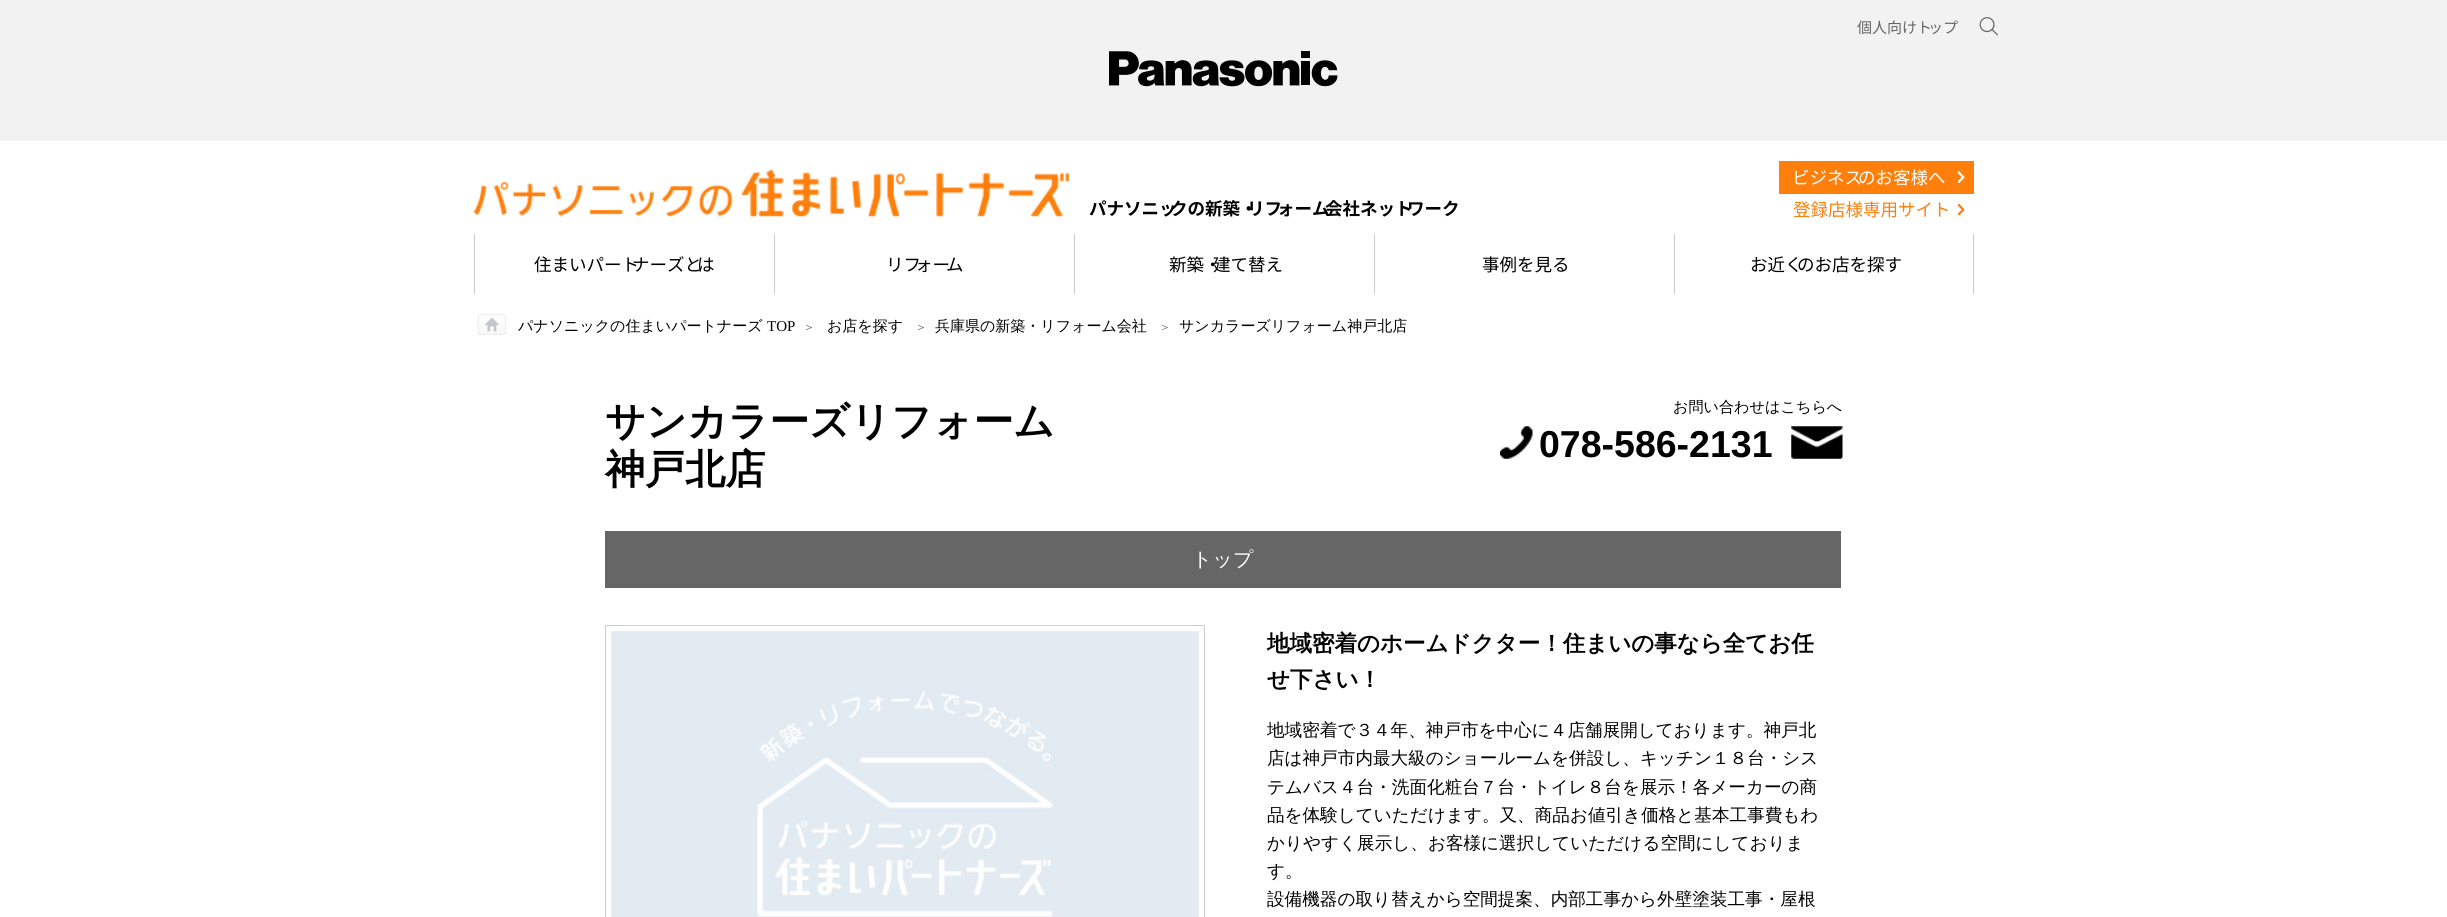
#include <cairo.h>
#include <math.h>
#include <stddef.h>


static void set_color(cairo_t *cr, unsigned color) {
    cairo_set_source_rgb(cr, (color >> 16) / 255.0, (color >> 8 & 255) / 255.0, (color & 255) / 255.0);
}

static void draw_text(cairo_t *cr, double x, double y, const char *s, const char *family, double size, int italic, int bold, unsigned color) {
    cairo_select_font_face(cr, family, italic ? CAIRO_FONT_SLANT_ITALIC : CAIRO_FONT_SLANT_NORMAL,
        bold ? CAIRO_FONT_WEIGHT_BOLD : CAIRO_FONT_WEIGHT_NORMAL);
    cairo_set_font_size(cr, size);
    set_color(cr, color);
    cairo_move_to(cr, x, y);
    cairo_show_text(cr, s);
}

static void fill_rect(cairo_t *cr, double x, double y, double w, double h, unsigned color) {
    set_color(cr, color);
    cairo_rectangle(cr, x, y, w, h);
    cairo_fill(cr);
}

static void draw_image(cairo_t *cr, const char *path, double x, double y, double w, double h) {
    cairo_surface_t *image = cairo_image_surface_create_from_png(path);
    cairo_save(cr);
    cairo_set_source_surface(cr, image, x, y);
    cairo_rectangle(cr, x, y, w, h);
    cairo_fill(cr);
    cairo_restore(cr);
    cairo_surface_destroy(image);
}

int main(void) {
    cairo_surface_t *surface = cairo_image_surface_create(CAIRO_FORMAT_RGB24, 2447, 917);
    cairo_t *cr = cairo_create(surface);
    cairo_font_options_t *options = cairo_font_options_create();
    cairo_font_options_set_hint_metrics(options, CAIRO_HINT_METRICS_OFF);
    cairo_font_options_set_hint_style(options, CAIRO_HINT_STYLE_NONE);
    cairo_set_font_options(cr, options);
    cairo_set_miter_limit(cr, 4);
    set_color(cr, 0xFFFFFF);
    cairo_paint(cr);
    fill_rect(cr, 0, 0, 2447, 141, 0xF2F2F2);
    draw_text(cr, 1857, 33, "個人向けト", "Noto Sans JP", 15, 0, 0, 0x666666);
    draw_text(cr, 1928, 33, "ップ", "Noto Sans JP", 15, 0, 0, 0x666666);
    draw_image(cr, "assets/img1.png", 1979, 17, 19, 19);
    draw_image(cr, "assets/img2.png", 1109, 51, 229, 36);
    draw_image(cr, "assets/img3.png", 473, 170, 596, 47);
    draw_text(cr, 1089, 215, "パナソニッ", "Noto Sans JP", 17.5, 0, 1, 0x000000);
    draw_text(cr, 1170, 215, "クの新築・", "Noto Sans JP", 17.5, 0, 1, 0x000000);
    draw_text(cr, 1247, 215, "リフ", "Noto Sans JP", 17.5, 0, 1, 0x000000);
    draw_text(cr, 1277, 215, "ォーム", "Noto Sans JP", 17.5, 0, 1, 0x000000);
    draw_text(cr, 1325, 215, "会社ネット", "Noto Sans JP", 17.5, 0, 1, 0x000000);
    draw_text(cr, 1407, 215, "ワーク", "Noto Sans JP", 17.5, 0, 1, 0x000000);
    fill_rect(cr, 1779, 161, 195, 33, 0xFE7F0C);
    draw_image(cr, "assets/img4.png", 1958, 171, 7, 13);
    draw_text(cr, 1792, 184, "ビジネス", "Noto Sans JP", 17.5, 0, 0, 0xFFFFFF);
    draw_text(cr, 1858, 184, "のお客様へ", "Noto Sans JP", 17.5, 0, 0, 0xFFFFFF);
    draw_image(cr, "assets/img5.png", 1958, 204, 7, 11);
    draw_text(cr, 1793, 216, "登録店様専用サイト", "Noto Sans JP", 17.5, 0, 0, 0xFE7F0C);
    fill_rect(cr, 474, 234, 1, 60, 0xCCCCCC);
    draw_text(cr, 534, 271, "住まいパート", "Noto Sans JP", 17.5, 0, 0, 0x000000);
    draw_text(cr, 632, 271, "ナーズと", "Noto Sans JP", 17.5, 0, 0, 0x000000);
    draw_text(cr, 697, 271, "は", "Noto Sans JP", 17.5, 0, 0, 0x000000);
    fill_rect(cr, 774, 234, 1, 60, 0xCCCCCC);
    draw_text(cr, 886, 271, "リフ", "Noto Sans JP", 17.5, 0, 0, 0x000000);
    draw_text(cr, 915, 271, "ォー", "Noto Sans JP", 17.5, 0, 0, 0x000000);
    draw_text(cr, 946, 271, "ム", "Noto Sans JP", 17.5, 0, 0, 0x000000);
    fill_rect(cr, 1074, 234, 1, 60, 0xCCCCCC);
    draw_text(cr, 1169, 271, "新築・", "Noto Sans JP", 17.5, 0, 0, 0x000000);
    draw_text(cr, 1213, 271, "建て替え", "Noto Sans JP", 17.5, 0, 0, 0x000000);
    fill_rect(cr, 1374, 234, 1, 60, 0xCCCCCC);
    draw_text(cr, 1482, 271, "事例を見る", "Noto Sans JP", 17.5, 0, 0, 0x000000);
    fill_rect(cr, 1973, 234, 1, 60, 0xCCCCCC);
    fill_rect(cr, 1674, 234, 1, 60, 0xCCCCCC);
    draw_text(cr, 1750, 271, "お近く", "Noto Sans JP", 17.5, 0, 0, 0x000000);
    draw_text(cr, 1797, 271, "のお店を探す", "Noto Sans JP", 17.5, 0, 0, 0x000000);
    draw_image(cr, "assets/img6.png", 477, 313, 30, 22);
    draw_text(cr, 518, 331, "パナソニックの住まいパートナーズ", "WenQuanYi Zen Hei Medium", 15, 0, 0, 0x000000);
    draw_text(cr, 767, 331, "TOP", "Liberation Serif", 15, 0, 0, 0x000000);
    draw_text(cr, 803, 331, "＞", "WenQuanYi Zen Hei Medium", 12, 0, 0, 0x666666);
    draw_text(cr, 827, 331, "お店を探す", "WenQuanYi Zen Hei Medium", 15, 0, 0, 0x000000);
    draw_text(cr, 915, 331, "＞", "WenQuanYi Zen Hei Medium", 12, 0, 0, 0x666666);
    draw_text(cr, 935, 331, "兵庫県の新築・リフォーム会社", "WenQuanYi Zen Hei Medium", 15, 0, 0, 0x000000);
    draw_text(cr, 1159, 331, "＞", "WenQuanYi Zen Hei Medium", 12, 0, 0, 0x666666);
    draw_text(cr, 1179, 331, "サンカラーズリフォーム神戸北店", "WenQuanYi Zen Hei Medium", 15, 0, 0, 0x000000);
    draw_text(cr, 605, 435, "サンカラーズリフォーム", "WenQuanYi Zen Hei", 40.1, 0, 1, 0x000000);
    draw_text(cr, 605, 483, "神戸北店", "WenQuanYi Zen Hei", 40.1, 0, 1, 0x000000);
    draw_text(cr, 1673, 412, "お問い合わせはこちらへ", "WenQuanYi Zen Hei Medium", 15.1, 0, 0, 0x000000);
    draw_image(cr, "assets/img7.png", 1500, 426, 33, 33);
    draw_text(cr, 1539, 457, "078-586-2131", "Liberation Sans", 37.5, 0, 1, 0x000000);
    draw_image(cr, "assets/img8.png", 1791, 426, 52, 33);
    fill_rect(cr, 605, 531, 1236, 57, 0x666666);
    draw_text(cr, 1192, 566, "トップ", "WenQuanYi Zen Hei Medium", 20, 0, 0, 0xFFFFFF);
    fill_rect(cr, 611, 631, 588, 286, 0xF5F5F5);
    cairo_rectangle(cr, 605.5, 625.5, 599, 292);
    set_color(cr, 0xCCCCCC);
    cairo_set_line_width(cr, 1);
    cairo_stroke(cr);
    draw_image(cr, "assets/img9.png", 611, 631, 588, 286);
    draw_text(cr, 1267, 651, "地域密着のホームドクター！住まいの事なら全てお任", "WenQuanYi Zen Hei", 22.5, 0, 1, 0x000000);
    draw_text(cr, 1267, 687, "せ下さい！", "WenQuanYi Zen Hei", 22.5, 0, 1, 0x000000);
    draw_text(cr, 1267, 736, "地域密着で３４年、神戸市を中心に４店舗展開しております。神戸北", "WenQuanYi Zen Hei Medium", 17.6, 0, 0, 0x000000);
    draw_text(cr, 1267, 764, "店は神戸市内最大級のショールームを併設し、キッチン１８台・シス", "WenQuanYi Zen Hei Medium", 17.6, 0, 0, 0x000000);
    draw_text(cr, 1267, 793, "テムバス４台・洗面化粧台７台・トイレ８台を展示！各メーカーの商", "WenQuanYi Zen Hei Medium", 17.6, 0, 0, 0x000000);
    draw_text(cr, 1267, 821, "品を体験していただけます。又、商品お値引き価格と基本工事費もわ", "WenQuanYi Zen Hei Medium", 17.6, 0, 0, 0x000000);
    draw_text(cr, 1267, 849, "かりやすく展示し、お客様に選択していただける空間にしておりま", "WenQuanYi Zen Hei Medium", 17.6, 0, 0, 0x000000);
    draw_text(cr, 1267, 877, "す。", "WenQuanYi Zen Hei Medium", 17.6, 0, 0, 0x000000);
    draw_text(cr, 1267, 905, "設備機器の取り替えから空間提案、内部工事から外壁塗装工事・屋根", "WenQuanYi Zen Hei Medium", 17.6, 0, 0, 0x000000);
    cairo_surface_write_to_png(surface, "output.png");
    cairo_font_options_destroy(options);
    cairo_destroy(cr);
    cairo_surface_destroy(surface);
    return 0;
}
